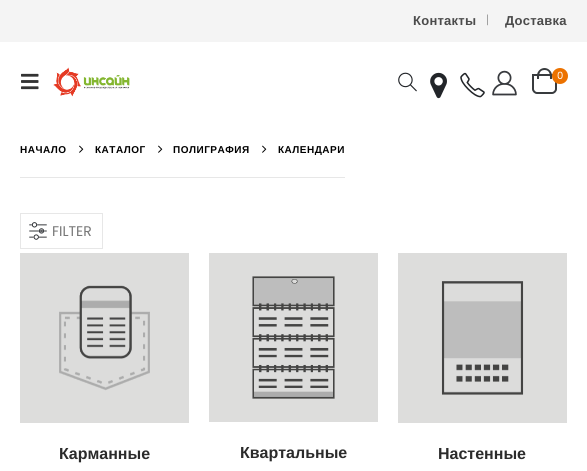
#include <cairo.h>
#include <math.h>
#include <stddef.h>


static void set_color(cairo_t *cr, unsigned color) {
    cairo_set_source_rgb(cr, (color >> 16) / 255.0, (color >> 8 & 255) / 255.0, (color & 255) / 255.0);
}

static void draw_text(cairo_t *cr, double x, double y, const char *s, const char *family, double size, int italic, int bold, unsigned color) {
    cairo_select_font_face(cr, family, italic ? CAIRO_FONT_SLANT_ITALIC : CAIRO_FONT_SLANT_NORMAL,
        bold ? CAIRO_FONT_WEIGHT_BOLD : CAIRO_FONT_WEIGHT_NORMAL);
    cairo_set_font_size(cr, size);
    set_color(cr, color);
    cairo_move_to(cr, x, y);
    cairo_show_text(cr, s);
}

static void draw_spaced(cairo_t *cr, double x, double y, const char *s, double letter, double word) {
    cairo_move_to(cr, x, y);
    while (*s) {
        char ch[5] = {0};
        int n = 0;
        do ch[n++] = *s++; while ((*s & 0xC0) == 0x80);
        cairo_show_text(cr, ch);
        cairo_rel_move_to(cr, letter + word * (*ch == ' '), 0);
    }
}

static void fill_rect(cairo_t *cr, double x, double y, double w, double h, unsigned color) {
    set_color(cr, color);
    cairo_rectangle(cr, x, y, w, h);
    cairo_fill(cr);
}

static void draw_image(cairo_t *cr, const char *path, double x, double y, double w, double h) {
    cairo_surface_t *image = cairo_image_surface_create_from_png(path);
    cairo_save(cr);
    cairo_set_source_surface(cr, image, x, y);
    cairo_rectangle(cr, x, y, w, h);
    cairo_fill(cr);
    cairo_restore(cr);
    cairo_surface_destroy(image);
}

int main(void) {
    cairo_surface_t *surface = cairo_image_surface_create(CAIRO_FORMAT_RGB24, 587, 471);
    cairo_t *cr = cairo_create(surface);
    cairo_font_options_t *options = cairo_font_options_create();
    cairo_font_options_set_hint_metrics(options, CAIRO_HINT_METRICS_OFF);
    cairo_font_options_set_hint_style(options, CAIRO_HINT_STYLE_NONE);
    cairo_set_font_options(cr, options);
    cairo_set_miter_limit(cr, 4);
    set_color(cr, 0xFFFFFF);
    cairo_paint(cr);
    fill_rect(cr, 398, 253, 169, 170, 0xDDDDDC);
    fill_rect(cr, 209, 253, 169, 169, 0xDDDDDC);
    fill_rect(cr, 20, 253, 169, 170, 0xDDDDDC);
    fill_rect(cr, 0, 0, 587, 42, 0xF4F4F4);
    cairo_select_font_face(cr, "Liberation Sans", CAIRO_FONT_SLANT_NORMAL, CAIRO_FONT_WEIGHT_BOLD);
    cairo_set_font_size(cr, 13);
    set_color(cr, 0x4B4B4B);
    draw_spaced(cr, 413, 25, "Контакты", 0.25, 0);
    draw_text(cr, 486, 24, "|", "Poppins Light", 12, 0, 0, 0x909090);
    cairo_select_font_face(cr, "Liberation Sans", CAIRO_FONT_SLANT_NORMAL, CAIRO_FONT_WEIGHT_BOLD);
    cairo_set_font_size(cr, 13);
    set_color(cr, 0x4B4B4B);
    draw_spaced(cr, 505, 25, "Доставка", 0.25, 0);
    draw_image(cr, "assets/img1.png", 21, 73, 18, 17);
    draw_image(cr, "assets/img2.png", 53, 67, 77, 30);
    draw_image(cr, "assets/img3.png", 398, 72, 19, 20);
    draw_image(cr, "assets/img4.png", 430, 72, 17, 27);
    draw_image(cr, "assets/img5.png", 460, 72, 25, 26);
    draw_image(cr, "assets/img6.png", 492, 70, 25, 26);
    cairo_new_path(cr);
    cairo_move_to(cr, 533, 75);
    cairo_line_to(cr, 556, 75);
    cairo_line_to(cr, 556, 89);
    cairo_curve_to(cr, 556, 91, 554, 93, 552, 93);
    cairo_line_to(cr, 537, 93);
    cairo_curve_to(cr, 535, 93, 533, 91, 533, 89);
    cairo_close_path(cr);
    set_color(cr, 0x383B3E);
    cairo_stroke(cr);
    cairo_set_fill_rule(cr, CAIRO_FILL_RULE_EVEN_ODD);
    cairo_new_path(cr);
    cairo_move_to(cr, 544.5, 68);
    cairo_curve_to(cr, 548.5, 68, 552, 71.5, 552, 75.5);
    cairo_line_to(cr, 552, 79);
    cairo_line_to(cr, 537, 79);
    cairo_line_to(cr, 537, 75.5);
    cairo_curve_to(cr, 537, 71.5, 540.5, 68, 544.5, 68);
    cairo_close_path(cr);
    cairo_move_to(cr, 544.5, 70);
    cairo_curve_to(cr, 550, 70, 550, 75, 550, 79);
    cairo_line_to(cr, 539, 79);
    cairo_curve_to(cr, 539, 75, 539, 70, 544.5, 70);
    cairo_close_path(cr);
    cairo_fill(cr);
    set_color(cr, 0xEC7200);
    cairo_arc(cr, 560, 76, 8, 0, 2 * M_PI);
    cairo_fill(cr);
    draw_text(cr, 557, 79, "0", "Poppins", 10, 0, 0, 0xFFFFFF);
    fill_rect(cr, 20, 177, 325, 1, 0xE7E7E7);
    cairo_select_font_face(cr, "Liberation Sans", CAIRO_FONT_SLANT_NORMAL, CAIRO_FONT_WEIGHT_BOLD);
    set_color(cr, 0x000000);
    draw_spaced(cr, 20, 153, "НАЧАЛО", 0.5, 0);
    draw_image(cr, "assets/img7.png", 79, 145, 5, 8);
    draw_spaced(cr, 95, 153, "КАТАЛОГ", 0.5, 0);
    draw_image(cr, "assets/img7.png", 158, 145, 5, 8);
    draw_spaced(cr, 173, 153, "ПОЛИГРАФИЯ", 0.5, 0);
    draw_image(cr, "assets/img7.png", 262, 145, 5, 8);
    draw_spaced(cr, 278, 153, "КАЛЕНДАРИ", 0.5, 0);
    cairo_rectangle(cr, 20.5, 213.5, 82, 35);
    set_color(cr, 0xE7E7E7);
    cairo_set_line_width(cr, 1);
    cairo_stroke(cr);
    draw_image(cr, "assets/img8.png", 29, 222, 18, 18);
    draw_text(cr, 52, 236, "FILTER", "Poppins", 14, 0, 0, 0x777777);
    draw_image(cr, "assets/img9.png", 59, 285, 91, 106);
    draw_text(cr, 59, 459, "Карманные", "Liberation Sans", 16, 0, 1, 0x2B2B2B);
    draw_image(cr, "assets/img10.png", 252, 276, 83, 123);
    draw_text(cr, 240, 458, "Квартальные", "Liberation Sans", 16, 0, 1, 0x2B2B2B);
    draw_image(cr, "assets/img11.png", 441, 281, 83, 114);
    draw_text(cr, 438, 459, "Настенные", "Liberation Sans", 16, 0, 1, 0x2B2B2B);
    cairo_surface_write_to_png(surface, "output.png");
    cairo_font_options_destroy(options);
    cairo_destroy(cr);
    cairo_surface_destroy(surface);
    return 0;
}
